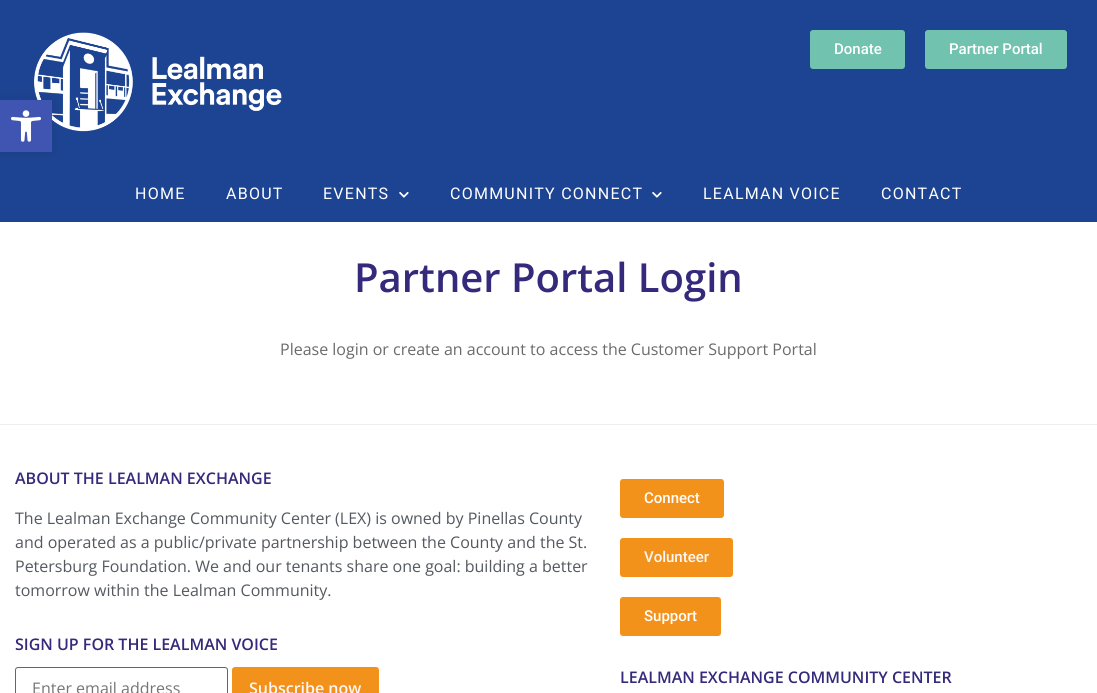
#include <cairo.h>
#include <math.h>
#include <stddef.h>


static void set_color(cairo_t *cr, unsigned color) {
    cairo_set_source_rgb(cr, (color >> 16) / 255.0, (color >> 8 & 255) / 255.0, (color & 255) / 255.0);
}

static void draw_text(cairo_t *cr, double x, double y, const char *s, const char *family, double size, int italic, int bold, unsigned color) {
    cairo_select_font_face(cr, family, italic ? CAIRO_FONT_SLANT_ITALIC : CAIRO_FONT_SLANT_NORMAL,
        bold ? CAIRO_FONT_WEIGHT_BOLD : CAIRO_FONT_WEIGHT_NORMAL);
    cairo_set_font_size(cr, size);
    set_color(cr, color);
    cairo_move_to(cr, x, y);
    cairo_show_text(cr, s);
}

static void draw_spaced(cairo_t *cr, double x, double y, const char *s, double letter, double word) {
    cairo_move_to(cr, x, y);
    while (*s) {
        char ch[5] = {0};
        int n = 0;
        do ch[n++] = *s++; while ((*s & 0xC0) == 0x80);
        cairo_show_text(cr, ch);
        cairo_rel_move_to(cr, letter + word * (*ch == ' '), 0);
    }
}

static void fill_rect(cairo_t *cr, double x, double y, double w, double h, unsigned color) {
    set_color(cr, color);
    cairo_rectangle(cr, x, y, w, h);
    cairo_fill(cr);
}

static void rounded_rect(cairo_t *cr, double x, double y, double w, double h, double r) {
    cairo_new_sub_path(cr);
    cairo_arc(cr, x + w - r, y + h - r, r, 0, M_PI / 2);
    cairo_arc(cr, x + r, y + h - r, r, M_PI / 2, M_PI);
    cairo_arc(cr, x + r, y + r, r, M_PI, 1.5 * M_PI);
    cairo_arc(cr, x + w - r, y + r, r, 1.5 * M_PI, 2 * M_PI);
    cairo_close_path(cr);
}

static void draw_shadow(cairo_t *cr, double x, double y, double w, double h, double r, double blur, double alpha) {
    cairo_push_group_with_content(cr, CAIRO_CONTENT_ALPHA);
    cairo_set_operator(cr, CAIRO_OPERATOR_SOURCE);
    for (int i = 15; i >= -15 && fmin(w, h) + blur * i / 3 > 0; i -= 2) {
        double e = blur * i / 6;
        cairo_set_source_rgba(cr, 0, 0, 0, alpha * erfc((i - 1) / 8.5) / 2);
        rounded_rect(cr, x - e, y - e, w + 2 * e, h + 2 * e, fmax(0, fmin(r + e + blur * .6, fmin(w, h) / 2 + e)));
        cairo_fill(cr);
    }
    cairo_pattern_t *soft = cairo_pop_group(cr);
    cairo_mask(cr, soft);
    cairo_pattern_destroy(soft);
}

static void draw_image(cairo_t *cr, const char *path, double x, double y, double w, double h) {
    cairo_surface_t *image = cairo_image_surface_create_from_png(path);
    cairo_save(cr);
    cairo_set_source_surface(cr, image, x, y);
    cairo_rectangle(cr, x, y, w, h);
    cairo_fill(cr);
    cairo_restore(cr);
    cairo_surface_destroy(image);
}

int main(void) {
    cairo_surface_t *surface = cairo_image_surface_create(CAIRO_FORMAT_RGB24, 1097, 693);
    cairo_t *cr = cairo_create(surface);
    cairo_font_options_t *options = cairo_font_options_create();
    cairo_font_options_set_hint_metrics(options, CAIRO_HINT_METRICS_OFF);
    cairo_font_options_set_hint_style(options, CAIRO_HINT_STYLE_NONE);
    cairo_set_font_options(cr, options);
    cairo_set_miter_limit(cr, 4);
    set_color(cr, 0xFFFFFF);
    cairo_paint(cr);
    fill_rect(cr, 0, 0, 1097, 222, 0x1D4492);
    draw_image(cr, "assets/img2.png", 34, 32, 248, 100);
    set_color(cr, 0x000000);
    draw_shadow(cr, 0, 100, 52, 52, 0, 5, 0.1);
    fill_rect(cr, 0, 100, 52, 52, 0x4054B2);
    draw_image(cr, "assets/img1.png", 11, 110, 30, 32);
    set_color(cr, 0x71C2AF);
    rounded_rect(cr, 810, 30, 95, 39, 3);
    cairo_fill(cr);
    draw_text(cr, 834, 54, "Donate", "Roboto Medium", 15, 0, 0, 0xFFFFFF);
    set_color(cr, 0x71C2AF);
    rounded_rect(cr, 925, 30, 142, 39, 3);
    cairo_fill(cr);
    draw_text(cr, 949, 54, "Partner Portal", "Roboto Medium", 15, 0, 0, 0xFFFFFF);
    cairo_select_font_face(cr, "Roboto", CAIRO_FONT_SLANT_NORMAL, CAIRO_FONT_WEIGHT_NORMAL);
    cairo_set_font_size(cr, 16);
    draw_spaced(cr, 135, 199, "HOME", 1.25, 0);
    draw_spaced(cr, 226, 199, "ABOUT", 1.25, 0);
    draw_spaced(cr, 323, 199, "EVENTS", 1.25, 0);
    draw_image(cr, "assets/img3.png", 399, 192, 10, 6);
    draw_spaced(cr, 450, 199, "COMMUNITY CONNECT", 1.25, 0);
    draw_image(cr, "assets/img3.png", 652, 192, 10, 6);
    draw_spaced(cr, 703, 199, "LEALMAN VOICE", 1.25, 0);
    draw_spaced(cr, 881, 199, "CONTACT", 1.25, 0);
    draw_text(cr, 354, 292, "Partner Portal Login", "Open Sans SemiBold", 40, 0, 0, 0x34297A);
    draw_text(cr, 280, 355, "Please login or create an account to access the Customer Support Portal", "Open Sans", 16, 0, 0, 0x6B6B6B);
    fill_rect(cr, 0, 424, 1097, 1, 0xEEEEEE);
    draw_text(cr, 15, 484, "ABOUT THE LEALMAN EXCHANGE", "Open Sans SemiBold", 16, 0, 0, 0x34297A);
    draw_text(cr, 15, 524, "The Lealman Exchange Community Center (LEX) is owned by Pinellas County", "Open Sans", 16, 0, 0, 0x54595F);
    draw_text(cr, 15, 548, "and operated as a public/private partnership between the County and the St.", "Open Sans", 16, 0, 0, 0x54595F);
    draw_text(cr, 15, 572, "Petersburg Foundation. We and our tenants share one goal: building a better", "Open Sans", 16, 0, 0, 0x54595F);
    draw_text(cr, 15, 596, "tomorrow within the Lealman Community.", "Open Sans", 16, 0, 0, 0x54595F);
    draw_text(cr, 15, 650, "SIGN UP FOR THE LEALMAN VOICE", "Open Sans SemiBold", 16, 0, 0, 0x34297A);
    rounded_rect(cr, 15.5, 667.5, 212, 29, 2.5);
    set_color(cr, 0x666666);
    cairo_set_line_width(cr, 1);
    cairo_stroke(cr);
    draw_text(cr, 32, 694, "Enter email address", "Open Sans", 16, 0, 0, 0x757575);
    set_color(cr, 0xF3921A);
    rounded_rect(cr, 232.5, 667.5, 146, 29, 2.5);
    cairo_fill_preserve(cr);
    cairo_stroke(cr);
    draw_text(cr, 249, 694, "Subscribe now", "Open Sans SemiBold", 16, 0, 0, 0xFFF7F7);
    set_color(cr, 0xF3921A);
    rounded_rect(cr, 620, 479, 104, 39, 3);
    cairo_fill(cr);
    draw_text(cr, 644, 503, "Connect", "Roboto Medium", 15, 0, 0, 0xFFFFFF);
    set_color(cr, 0xF3921A);
    rounded_rect(cr, 620, 538, 113, 39, 3);
    cairo_fill(cr);
    draw_text(cr, 644, 562, "Volunteer", "Roboto Medium", 15, 0, 0, 0xFFF7F7);
    set_color(cr, 0xF3921A);
    rounded_rect(cr, 620, 597, 101, 39, 3);
    cairo_fill(cr);
    draw_text(cr, 644, 621, "Support", "Roboto Medium", 15, 0, 0, 0xFFFFFF);
    draw_text(cr, 620, 683, "LEALMAN EXCHANGE COMMUNITY CENTER", "Open Sans SemiBold", 16, 0, 0, 0x34297A);
    cairo_surface_write_to_png(surface, "output.png");
    cairo_font_options_destroy(options);
    cairo_destroy(cr);
    cairo_surface_destroy(surface);
    return 0;
}
